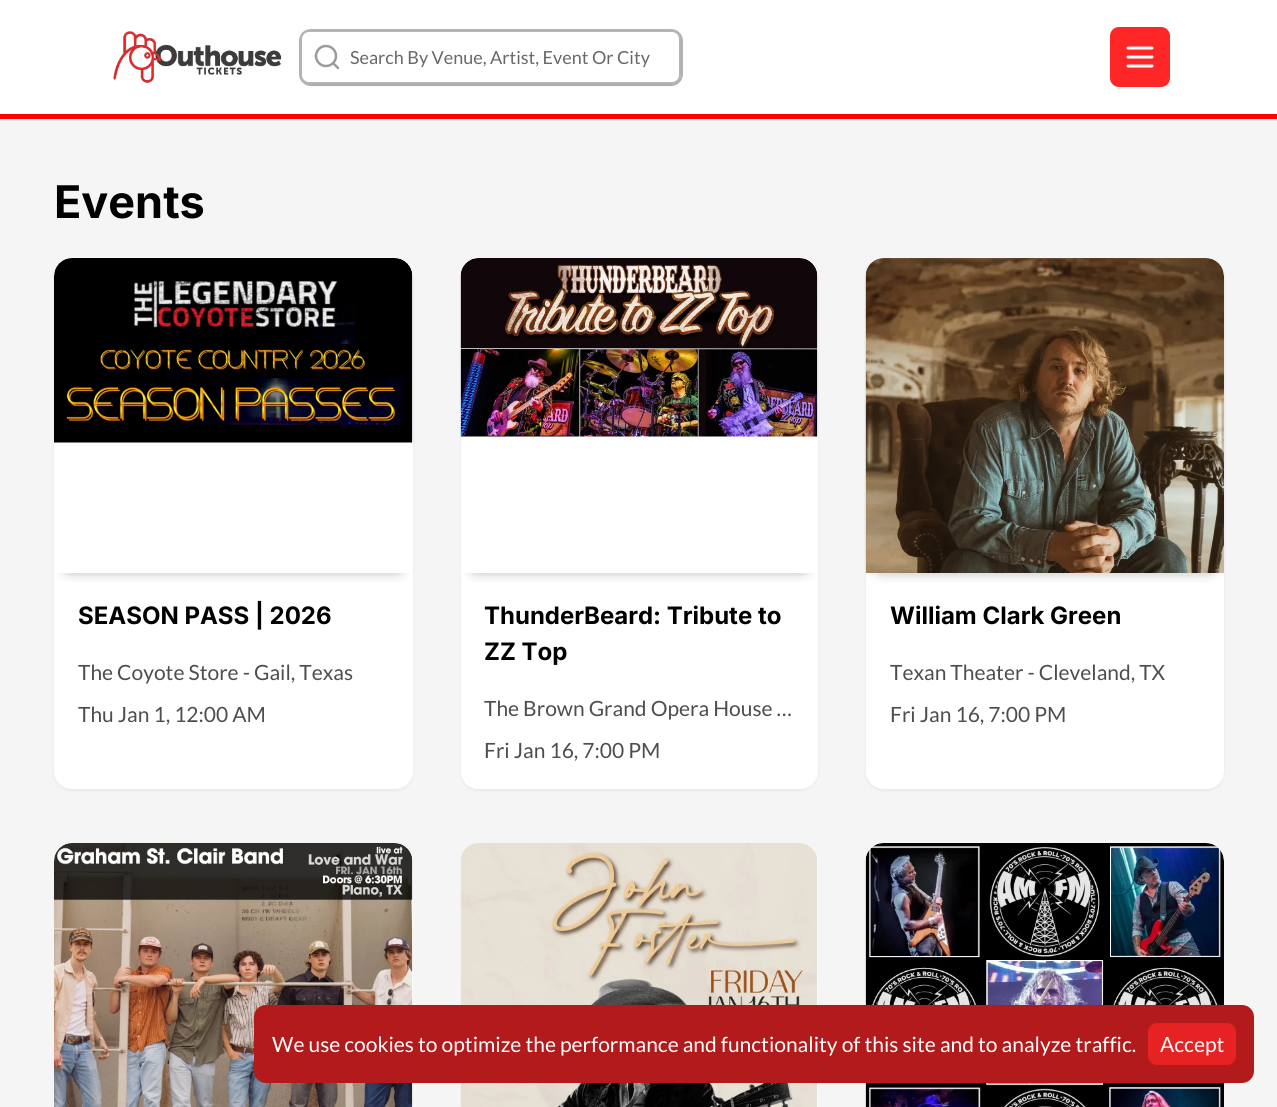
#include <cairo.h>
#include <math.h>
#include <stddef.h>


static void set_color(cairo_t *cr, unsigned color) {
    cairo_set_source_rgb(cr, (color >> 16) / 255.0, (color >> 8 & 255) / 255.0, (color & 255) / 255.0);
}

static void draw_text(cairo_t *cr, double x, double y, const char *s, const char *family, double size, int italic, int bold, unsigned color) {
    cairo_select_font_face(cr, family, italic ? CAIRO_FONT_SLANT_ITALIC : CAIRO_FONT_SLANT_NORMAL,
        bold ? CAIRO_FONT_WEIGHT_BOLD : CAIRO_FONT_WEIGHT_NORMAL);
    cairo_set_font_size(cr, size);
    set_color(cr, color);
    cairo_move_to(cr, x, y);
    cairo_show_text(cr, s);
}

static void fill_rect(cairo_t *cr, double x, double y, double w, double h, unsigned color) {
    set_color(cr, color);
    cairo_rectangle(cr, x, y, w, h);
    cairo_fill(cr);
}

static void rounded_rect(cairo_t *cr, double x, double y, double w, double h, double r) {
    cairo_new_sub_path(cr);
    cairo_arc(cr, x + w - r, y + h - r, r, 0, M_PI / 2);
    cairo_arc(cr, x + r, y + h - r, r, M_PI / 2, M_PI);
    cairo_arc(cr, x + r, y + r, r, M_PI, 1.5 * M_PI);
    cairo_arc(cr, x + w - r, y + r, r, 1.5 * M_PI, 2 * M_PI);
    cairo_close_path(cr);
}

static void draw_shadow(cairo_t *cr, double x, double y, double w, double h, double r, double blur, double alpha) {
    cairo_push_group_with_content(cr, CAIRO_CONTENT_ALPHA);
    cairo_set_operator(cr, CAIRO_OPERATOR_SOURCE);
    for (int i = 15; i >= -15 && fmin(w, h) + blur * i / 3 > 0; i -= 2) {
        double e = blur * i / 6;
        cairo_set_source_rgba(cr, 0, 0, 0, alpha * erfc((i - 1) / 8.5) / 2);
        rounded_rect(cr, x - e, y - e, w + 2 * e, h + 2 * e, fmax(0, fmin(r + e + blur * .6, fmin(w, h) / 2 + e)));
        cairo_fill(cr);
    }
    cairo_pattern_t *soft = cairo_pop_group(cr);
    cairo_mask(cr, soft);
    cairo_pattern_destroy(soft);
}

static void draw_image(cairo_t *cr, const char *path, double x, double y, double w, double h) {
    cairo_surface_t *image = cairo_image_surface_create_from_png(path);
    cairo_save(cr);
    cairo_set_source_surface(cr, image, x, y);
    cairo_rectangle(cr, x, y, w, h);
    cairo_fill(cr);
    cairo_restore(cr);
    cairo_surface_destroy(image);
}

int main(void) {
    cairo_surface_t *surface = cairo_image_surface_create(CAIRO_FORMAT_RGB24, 1277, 1107);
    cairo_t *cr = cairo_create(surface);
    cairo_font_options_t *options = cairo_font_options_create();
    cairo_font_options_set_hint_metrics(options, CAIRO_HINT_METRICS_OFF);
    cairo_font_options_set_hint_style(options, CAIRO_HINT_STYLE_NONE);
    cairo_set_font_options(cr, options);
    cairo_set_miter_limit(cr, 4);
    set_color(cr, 0xF5F5F5);
    cairo_paint(cr);
    fill_rect(cr, 0, 0, 1277, 114, 0xFFFFFF);
    fill_rect(cr, 0, 114, 1277, 5, 0xFF0000);
    draw_image(cr, "assets/img1.png", 113, 31, 169, 52);
    rounded_rect(cr, 300, 30, 382, 55, 11);
    set_color(cr, 0xB4B4B4);
    cairo_stroke(cr);
    set_color(cr, 0x000000);
    draw_shadow(cr, 300, 32, 381, 54, 9, 1.5, 0.05);
    set_color(cr, 0xFFFFFF);
    rounded_rect(cr, 301, 31, 379, 52, 8);
    cairo_fill_preserve(cr);
    set_color(cr, 0xB4B4B4);
    cairo_stroke(cr);
    cairo_arc(cr, 326, 56, 10, 0, 2 * M_PI);
    set_color(cr, 0x9B9B9B);
    cairo_set_line_width(cr, 2.5);
    cairo_stroke(cr);
    cairo_new_path(cr);
    cairo_move_to(cr, 338, 68);
    cairo_line_to(cr, 333, 63);
    cairo_set_line_cap(cr, CAIRO_LINE_CAP_ROUND);
    cairo_set_line_join(cr, CAIRO_LINE_JOIN_ROUND);
    cairo_stroke(cr);
    draw_text(cr, 350, 64, "Search By Venue, Artist, Event Or City", "Lato", 18, 0, 0, 0x686868);
    set_color(cr, 0xFF2627);
    rounded_rect(cr, 1110, 27, 60, 60, 9);
    cairo_fill(cr);
    cairo_new_path(cr);
    cairo_move_to(cr, 1128, 48);
    cairo_line_to(cr, 1152, 48);
    cairo_move_to(cr, 1128, 57);
    cairo_line_to(cr, 1152, 57);
    cairo_move_to(cr, 1128, 66);
    cairo_line_to(cr, 1152, 66);
    set_color(cr, 0xFFFFFF);
    cairo_set_line_width(cr, 3);
    cairo_stroke(cr);
    draw_text(cr, 54, 218, "Events", "Inter", 45, 0, 1, 0x000000);
    set_color(cr, 0x000000);
    draw_shadow(cr, 54, 260, 359, 531, 18, 1.5, 0.05);
    set_color(cr, 0xFFFFFF);
    rounded_rect(cr, 54, 258, 359, 531, 18);
    cairo_fill(cr);
    cairo_save(cr);
    cairo_rectangle(cr, 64, 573, 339, 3);
    cairo_clip(cr);
    set_color(cr, 0x000000);
    draw_shadow(cr, 56, 263, 355, 312, 17, 3, 0.06);
    cairo_restore(cr);
    cairo_save(cr);
    rounded_rect(cr, 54, 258, 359, 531, 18);
    cairo_clip(cr);
    cairo_rectangle(cr, 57, 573, 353, 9);
    cairo_clip(cr);
    set_color(cr, 0x000000);
    draw_shadow(cr, 56, 266, 355, 312, 17, 4.5, 0.1);
    cairo_restore(cr);
    draw_image(cr, "assets/img2.png", 54, 258, 359, 185);
    draw_text(cr, 78, 624, "SEASON PASS | 2026", "Inter", 24, 0, 1, 0x000000);
    draw_text(cr, 78, 680, "The Coyote Store - Gail, Texas", "Lato", 21, 0, 0, 0x4E4E4E);
    draw_text(cr, 78, 722, "Thu Jan 1, 12:00 AM", "Lato", 21, 0, 0, 0x4E4E4E);
    set_color(cr, 0x000000);
    draw_shadow(cr, 461, 260, 357, 531, 18, 1.5, 0.05);
    set_color(cr, 0xFFFFFF);
    rounded_rect(cr, 461, 258, 357, 531, 18);
    cairo_fill(cr);
    cairo_new_path(cr);
    cairo_move_to(cr, 461, 573);
    cairo_line_to(cr, 818, 573);
    cairo_line_to(cr, 818, 771);
    cairo_curve_to(cr, 818, 781, 810, 789, 800, 789);
    cairo_line_to(cr, 479, 789);
    cairo_curve_to(cr, 469, 789, 461, 781, 461, 771);
    cairo_close_path(cr);
    cairo_fill(cr);
    cairo_save(cr);
    cairo_rectangle(cr, 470, 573, 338, 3);
    cairo_clip(cr);
    set_color(cr, 0x000000);
    draw_shadow(cr, 462, 263, 354, 312, 17, 3, 0.06);
    cairo_restore(cr);
    cairo_save(cr);
    rounded_rect(cr, 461, 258, 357, 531, 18);
    cairo_clip(cr);
    cairo_rectangle(cr, 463, 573, 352, 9);
    cairo_clip(cr);
    set_color(cr, 0x000000);
    draw_shadow(cr, 462, 266, 354, 312, 17, 4.5, 0.1);
    cairo_restore(cr);
    draw_image(cr, "assets/img3.png", 460, 258, 358, 179);
    draw_text(cr, 484, 624, "ThunderBeard: Tribute to", "Inter", 24, 0, 1, 0x000000);
    draw_text(cr, 484, 660, "ZZ Top", "Inter", 24, 0, 1, 0x000000);
    draw_text(cr, 484, 716, "The Brown Grand Opera House …", "Lato", 21, 0, 0, 0x4E4E4E);
    draw_text(cr, 484, 758, "Fri Jan 16, 7:00 PM", "Lato", 21, 0, 0, 0x4E4E4E);
    set_color(cr, 0x000000);
    draw_shadow(cr, 866, 260, 358, 531, 18, 1.5, 0.05);
    set_color(cr, 0xFFFFFF);
    rounded_rect(cr, 866, 258, 358, 531, 18);
    cairo_fill(cr);
    set_color(cr, 0x000000);
    draw_shadow(cr, 867, 263, 356, 312, 17, 3, 0.06);
    cairo_save(cr);
    rounded_rect(cr, 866, 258, 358, 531, 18);
    cairo_clip(cr);
    draw_shadow(cr, 867, 266, 356, 312, 17, 4.5, 0.1);
    cairo_restore(cr);
    draw_image(cr, "assets/img4.png", 865, 258, 359, 315);
    draw_text(cr, 890, 624, "William Clark Green", "Inter", 24, 0, 1, 0x000000);
    draw_text(cr, 890, 680, "Texan Theater - Cleveland, TX", "Lato", 21, 0, 0, 0x4E4E4E);
    draw_text(cr, 890, 722, "Fri Jan 16, 7:00 PM", "Lato", 21, 0, 0, 0x4E4E4E);
    set_color(cr, 0xFFFFFF);
    rounded_rect(cr, 54, 843, 359, 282, 18);
    cairo_fill(cr);
    draw_image(cr, "assets/img5.png", 54, 843, 359, 264);
    rounded_rect(cr, 461, 843, 357, 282, 18);
    cairo_fill(cr);
    draw_image(cr, "assets/img6.png", 460, 843, 358, 264);
    rounded_rect(cr, 866, 843, 358, 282, 18);
    cairo_fill(cr);
    draw_image(cr, "assets/img7.png", 865, 843, 359, 264);
    set_color(cr, 0xB31A1B);
    rounded_rect(cr, 254, 1005, 1000, 78, 12);
    cairo_fill(cr);
    draw_text(cr, 272, 1052, "We use cookies to optimize the performance and functionality of this site and to analyze traffic.", "Lato", 21, 0, 0, 0xFFFFFF);
    set_color(cr, 0xE62223);
    rounded_rect(cr, 1148, 1023, 88, 42, 9);
    cairo_fill(cr);
    draw_text(cr, 1160, 1052, "Accept", "Lato", 21, 0, 0, 0xFFFFFF);
    cairo_surface_write_to_png(surface, "output.png");
    cairo_font_options_destroy(options);
    cairo_destroy(cr);
    cairo_surface_destroy(surface);
    return 0;
}
